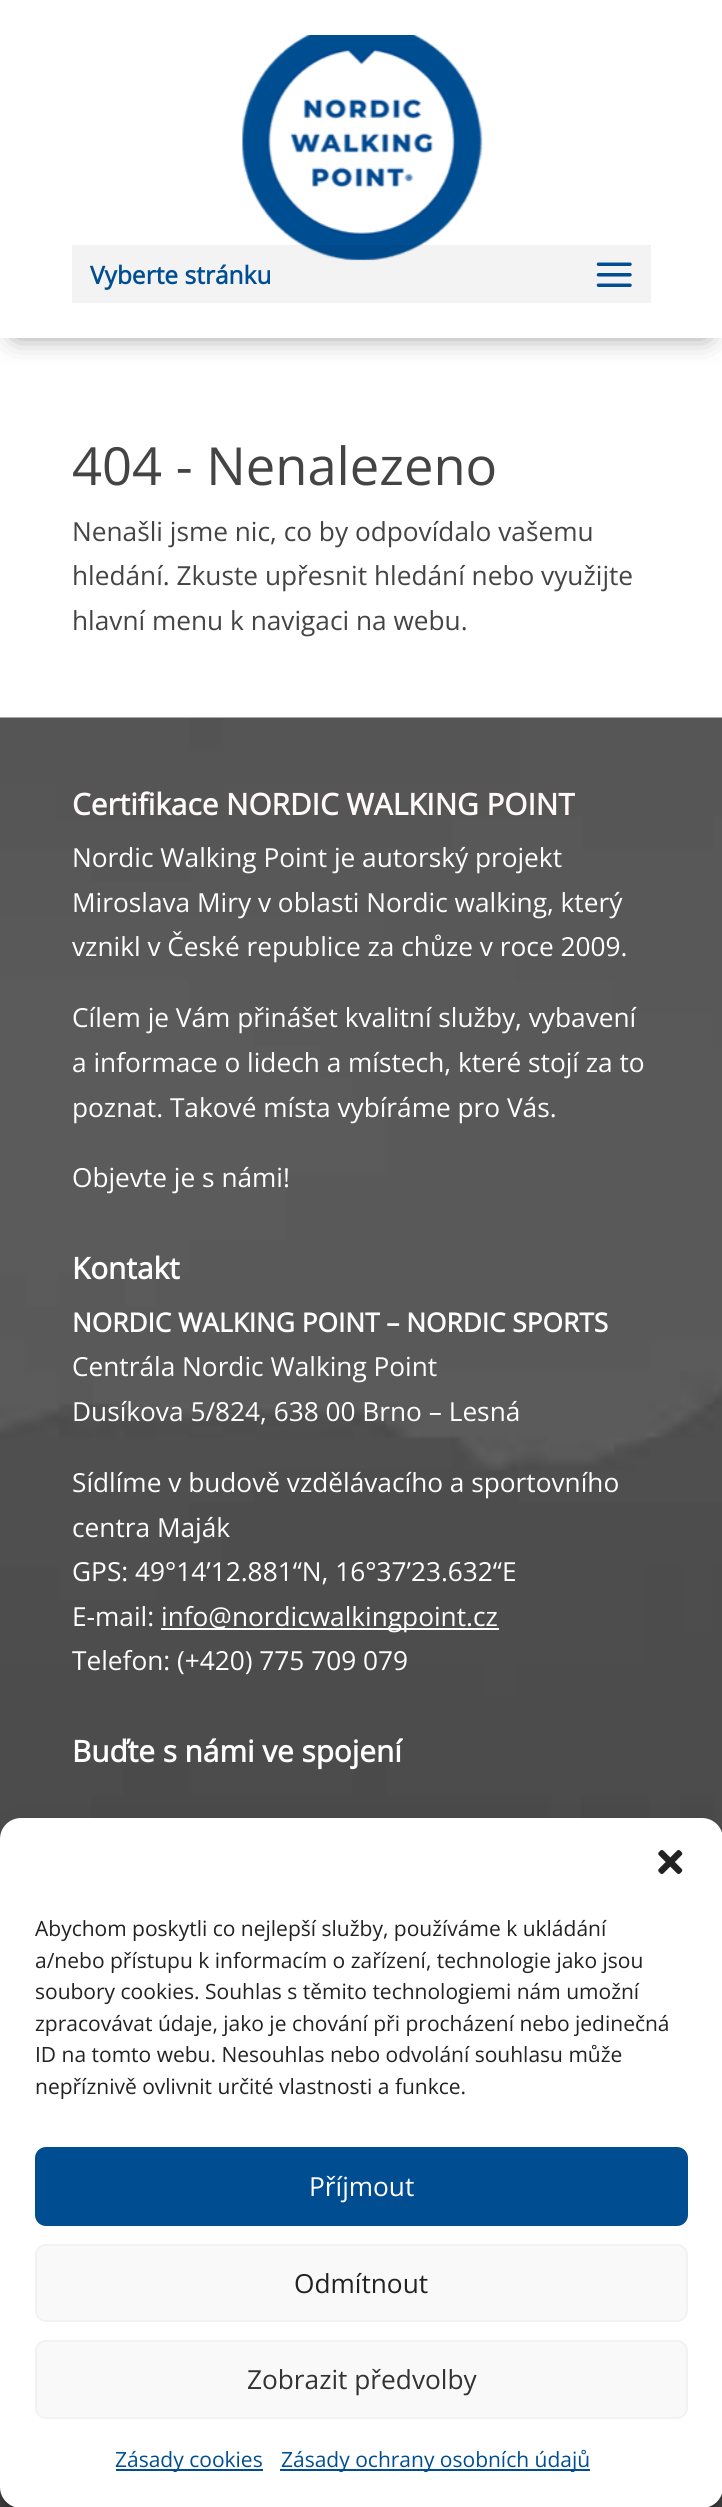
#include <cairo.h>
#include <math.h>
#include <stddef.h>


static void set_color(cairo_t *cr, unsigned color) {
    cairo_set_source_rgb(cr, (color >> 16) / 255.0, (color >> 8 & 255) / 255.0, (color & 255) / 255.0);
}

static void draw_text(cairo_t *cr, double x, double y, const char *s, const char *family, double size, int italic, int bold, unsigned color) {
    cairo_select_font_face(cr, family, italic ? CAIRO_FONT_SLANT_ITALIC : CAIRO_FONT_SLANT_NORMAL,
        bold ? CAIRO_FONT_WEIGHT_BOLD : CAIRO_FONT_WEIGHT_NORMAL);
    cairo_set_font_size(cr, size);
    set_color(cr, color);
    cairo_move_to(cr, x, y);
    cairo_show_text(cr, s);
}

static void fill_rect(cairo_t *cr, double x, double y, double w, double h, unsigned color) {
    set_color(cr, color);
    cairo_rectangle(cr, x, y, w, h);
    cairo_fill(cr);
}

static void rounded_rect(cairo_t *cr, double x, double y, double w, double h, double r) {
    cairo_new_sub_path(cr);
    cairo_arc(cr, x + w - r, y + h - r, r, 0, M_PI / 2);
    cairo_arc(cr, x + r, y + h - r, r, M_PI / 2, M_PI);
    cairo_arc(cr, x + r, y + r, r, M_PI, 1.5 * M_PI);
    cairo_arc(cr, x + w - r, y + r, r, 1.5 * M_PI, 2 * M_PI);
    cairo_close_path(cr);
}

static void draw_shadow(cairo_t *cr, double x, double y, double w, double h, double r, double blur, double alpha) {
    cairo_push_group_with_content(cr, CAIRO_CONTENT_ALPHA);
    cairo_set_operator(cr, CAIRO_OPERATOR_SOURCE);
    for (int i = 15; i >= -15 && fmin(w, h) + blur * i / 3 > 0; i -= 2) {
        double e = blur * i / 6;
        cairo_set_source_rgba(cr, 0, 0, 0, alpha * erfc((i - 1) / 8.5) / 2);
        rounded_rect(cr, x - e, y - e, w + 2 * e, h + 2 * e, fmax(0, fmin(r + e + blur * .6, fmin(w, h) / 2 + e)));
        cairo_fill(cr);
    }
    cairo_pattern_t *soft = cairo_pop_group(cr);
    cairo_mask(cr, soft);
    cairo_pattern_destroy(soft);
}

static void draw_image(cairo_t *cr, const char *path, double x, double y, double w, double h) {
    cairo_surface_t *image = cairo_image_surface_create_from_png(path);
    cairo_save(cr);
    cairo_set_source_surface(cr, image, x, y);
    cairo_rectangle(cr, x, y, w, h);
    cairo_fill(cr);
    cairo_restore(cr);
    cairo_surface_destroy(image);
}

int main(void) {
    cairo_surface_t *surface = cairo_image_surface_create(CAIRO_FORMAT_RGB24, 722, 2507);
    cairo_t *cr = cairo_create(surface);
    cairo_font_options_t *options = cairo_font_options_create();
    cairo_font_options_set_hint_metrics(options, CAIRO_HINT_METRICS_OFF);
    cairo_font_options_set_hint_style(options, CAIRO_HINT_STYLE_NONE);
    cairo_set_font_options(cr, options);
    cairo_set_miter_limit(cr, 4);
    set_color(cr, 0xFFFFFF);
    cairo_paint(cr);
    set_color(cr, 0x000000);
    draw_shadow(cr, 16, 28, 691, 306, 0, 14, 0.49);
    fill_rect(cr, 0, 0, 722, 338, 0xFFFFFF);
    draw_image(cr, "assets/img1.png", 242, 35, 241, 226);
    cairo_set_source_rgba(cr, 0, 0, 0, 0.05);
    cairo_rectangle(cr, 72, 245, 579, 58);
    cairo_fill(cr);
    draw_text(cr, 90, 284, "Vyberte stránku", "Open Sans", 24.5, 0, 1, 0x004E91);
    draw_image(cr, "assets/img2.png", 596, 262, 36, 25);
    draw_text(cr, 72, 485, "404 - Nenalezeno", "Open Sans", 52.5, 0, 0, 0x444444);
    draw_text(cr, 72, 541, "Nenašli jsme nic, co by odpovídalo vašemu", "Open Sans", 26.25, 0, 0, 0x444444);
    draw_text(cr, 72, 585, "hledání. Zkuste upřesnit hledání nebo využijte", "Open Sans", 26.25, 0, 0, 0x444444);
    draw_text(cr, 72, 630, "hlavní menu k navigaci na webu.", "Open Sans", 26.25, 0, 0, 0x444444);
    draw_image(cr, "assets/img3.png", 0, 717, 722, 1790);
    draw_text(cr, 72, 815, "Certifikace NORDIC WALKING POINT", "Open Sans", 29.75, 0, 1, 0xFFF9F9);
    draw_text(cr, 72, 867, "Nordic Walking Point je autorský projekt", "Open Sans", 26.25, 0, 0, 0xFFFFFF);
    draw_text(cr, 72, 912, "Miroslava Miry v oblasti Nordic walking, který", "Open Sans", 26.25, 0, 0, 0xFFFFFF);
    draw_text(cr, 72, 956, "vznikl v České republice za chůze v roce 2009.", "Open Sans", 26.25, 0, 0, 0xFFFFFF);
    draw_text(cr, 72, 1027, "Cílem je Vám přinášet kvalitní služby, vybavení", "Open Sans", 26.25, 0, 0, 0xFFFFFF);
    draw_text(cr, 72, 1072, "a informace o lidech a místech, které stojí za to", "Open Sans", 26.25, 0, 0, 0xFFFFFF);
    draw_text(cr, 72, 1117, "poznat. Takové místa vybíráme pro Vás.", "Open Sans", 26.25, 0, 0, 0xFFFFFF);
    draw_text(cr, 72, 1187, "Objevte je s námi!", "Open Sans", 26.25, 0, 0, 0xFFFFFF);
    draw_text(cr, 72, 1279, "Kontakt", "Open Sans", 29.75, 0, 1, 0xFFFFFF);
    draw_text(cr, 72, 1332, "NORDIC WALKING POINT – NORDIC SPORTS", "Open Sans", 26.25, 0, 1, 0xFFFFFF);
    draw_text(cr, 72, 1376, "Centrála Nordic Walking Point", "Open Sans", 26.25, 0, 0, 0xFFFFFF);
    draw_text(cr, 72, 1421, "Dusíkova 5/824, 638 00 Brno – Lesná", "Open Sans", 26.25, 0, 0, 0xFFFFFF);
    draw_text(cr, 72, 1492, "Sídlíme v budově vzdělávacího a sportovního", "Open Sans", 26.25, 0, 0, 0xFFFFFF);
    draw_text(cr, 72, 1537, "centra Maják", "Open Sans", 26.25, 0, 0, 0xFFFFFF);
    draw_text(cr, 72, 1581, "GPS: 49°14’12.881“N, 16°37’23.632“E", "Open Sans", 26.25, 0, 0, 0xFFFFFF);
    draw_text(cr, 72, 1626, "E-mail:", "Open Sans", 26.25, 0, 0, 0xFFFFFF);
    fill_rect(cr, 161, 1628, 338, 2, 0xFFFFFF);
    draw_text(cr, 161, 1626, "info@nordicwalkingpoint.cz", "Open Sans", 26.25, 0, 0, 0xFFFFFF);
    draw_text(cr, 72, 1670, "Telefon: (+420) 775 709 079", "Open Sans", 26.25, 0, 0, 0xFFFFFF);
    draw_text(cr, 72, 1762, "Buďte s námi ve spojení", "Open Sans", 29.75, 0, 1, 0xFFFFFF);
    set_color(cr, 0x000000);
    draw_shadow(cr, 0, 1829, 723, 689, 21, 5, 0.23);
    draw_shadow(cr, 0, 1836, 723, 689, 21, 17.5, 0.19);
    set_color(cr, 0xFFFFFF);
    rounded_rect(cr, 0, 1818, 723, 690, 21);
    cairo_fill(cr);
    draw_image(cr, "assets/img4.png", 658, 1850, 25, 24);
    draw_text(cr, 35, 1936, "Abychom poskytli co nejlepší služby, používáme k ukládání", "Open Sans", 21, 0, 0, 0x222222);
    draw_text(cr, 35, 1968, "a/nebo přístupu k informacím o zařízení, technologie jako jsou", "Open Sans", 21, 0, 0, 0x222222);
    draw_text(cr, 35, 1999, "soubory cookies. Souhlas s těmito technologiemi nám umožní", "Open Sans", 21, 0, 0, 0x222222);
    draw_text(cr, 35, 2031, "zpracovávat údaje, jako je chování při procházení nebo jedinečná", "Open Sans", 21, 0, 0, 0x222222);
    draw_text(cr, 35, 2062, "ID na tomto webu. Nesouhlas nebo odvolání souhlasu může", "Open Sans", 21, 0, 0, 0x222222);
    draw_text(cr, 35, 2094, "nepříznivě ovlivnit určité vlastnosti a funkce.", "Open Sans", 21, 0, 0, 0x222222);
    set_color(cr, 0x004E91);
    rounded_rect(cr, 36, 2148, 651, 77, 10);
    cairo_fill_preserve(cr);
    cairo_stroke(cr);
    draw_text(cr, 309, 2196, "Příjmout", "Open Sans", 26.25, 0, 0, 0xFFFFFF);
    set_color(cr, 0xF9F9F9);
    rounded_rect(cr, 36, 2245, 651, 76, 10);
    cairo_fill_preserve(cr);
    set_color(cr, 0xF2F2F2);
    cairo_stroke(cr);
    draw_text(cr, 294, 2293, "Odmítnout", "Open Sans", 26.25, 0, 0, 0x222222);
    set_color(cr, 0xF9F9F9);
    rounded_rect(cr, 36, 2341, 651, 77, 10);
    cairo_fill_preserve(cr);
    set_color(cr, 0xF2F2F2);
    cairo_stroke(cr);
    draw_text(cr, 247, 2389, "Zobrazit předvolby", "Open Sans", 26.25, 0, 0, 0x333333);
    fill_rect(cr, 116, 2469, 147, 2, 0x004E91);
    draw_text(cr, 115, 2467, "Zásady cookies", "Open Sans", 21, 0, 0, 0x004E91);
    fill_rect(cr, 280, 2469, 310, 2, 0x004E91);
    draw_text(cr, 281, 2467, "Zásady ochrany osobních údajů", "Open Sans", 21, 0, 0, 0x004E91);
    cairo_surface_write_to_png(surface, "output.png");
    cairo_font_options_destroy(options);
    cairo_destroy(cr);
    cairo_surface_destroy(surface);
    return 0;
}
